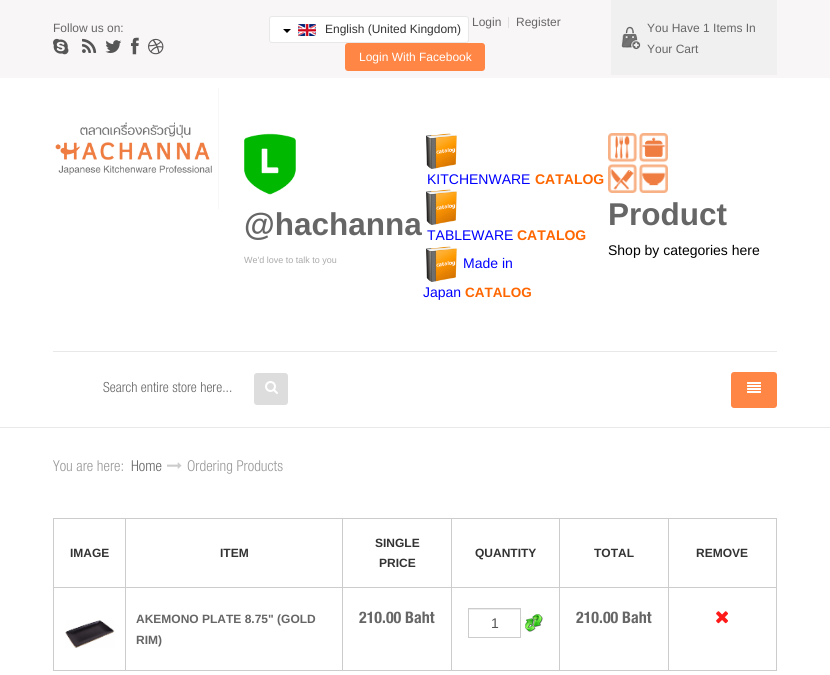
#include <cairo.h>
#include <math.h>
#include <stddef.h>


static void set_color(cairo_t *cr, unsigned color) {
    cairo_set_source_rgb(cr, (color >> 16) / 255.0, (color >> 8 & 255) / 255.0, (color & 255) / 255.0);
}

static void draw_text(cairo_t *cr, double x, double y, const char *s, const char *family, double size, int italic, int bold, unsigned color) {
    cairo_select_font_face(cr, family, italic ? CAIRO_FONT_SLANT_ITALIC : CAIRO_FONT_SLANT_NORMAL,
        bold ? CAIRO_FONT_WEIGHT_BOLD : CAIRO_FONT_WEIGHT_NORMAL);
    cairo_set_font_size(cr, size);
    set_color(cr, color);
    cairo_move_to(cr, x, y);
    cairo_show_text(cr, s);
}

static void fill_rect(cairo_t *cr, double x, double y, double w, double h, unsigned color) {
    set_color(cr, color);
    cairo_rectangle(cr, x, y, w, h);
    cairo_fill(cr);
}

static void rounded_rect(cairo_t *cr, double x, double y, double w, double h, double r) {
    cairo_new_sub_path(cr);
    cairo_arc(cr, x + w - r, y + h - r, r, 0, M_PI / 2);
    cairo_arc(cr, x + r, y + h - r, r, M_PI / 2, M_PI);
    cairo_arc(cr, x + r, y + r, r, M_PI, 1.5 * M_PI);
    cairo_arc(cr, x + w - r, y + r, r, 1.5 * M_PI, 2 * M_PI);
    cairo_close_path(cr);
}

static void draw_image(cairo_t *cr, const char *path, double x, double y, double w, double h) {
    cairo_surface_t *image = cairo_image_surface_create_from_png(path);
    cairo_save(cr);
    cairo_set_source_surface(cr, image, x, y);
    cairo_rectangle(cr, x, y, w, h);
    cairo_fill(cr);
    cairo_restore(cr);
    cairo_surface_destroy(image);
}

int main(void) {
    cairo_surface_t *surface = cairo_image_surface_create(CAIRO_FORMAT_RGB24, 830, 675);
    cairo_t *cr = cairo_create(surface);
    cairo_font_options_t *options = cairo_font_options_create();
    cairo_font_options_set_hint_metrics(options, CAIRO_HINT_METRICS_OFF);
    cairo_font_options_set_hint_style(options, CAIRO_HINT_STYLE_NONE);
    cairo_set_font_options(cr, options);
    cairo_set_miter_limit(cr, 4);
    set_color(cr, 0xFFFFFF);
    cairo_paint(cr);
    fill_rect(cr, 0, 0, 830, 78, 0xF9F6F7);
    draw_text(cr, 53, 32, "Follow us on:", "Liberation Sans", 12, 0, 0, 0x666666);
    draw_image(cr, "assets/img1.png", 53, 38, 16, 17);
    draw_image(cr, "assets/img2.png", 82, 38, 15, 15);
    draw_image(cr, "assets/img3.png", 105, 40, 17, 13);
    draw_image(cr, "assets/img4.png", 131, 37, 8, 18);
    draw_image(cr, "assets/img5.png", 148, 38, 16, 17);
    set_color(cr, 0xFFFFFF);
    rounded_rect(cr, 269.5, 16.5, 199, 26, 2.5);
    cairo_fill_preserve(cr);
    set_color(cr, 0xE8E8E8);
    cairo_set_line_width(cr, 1);
    cairo_stroke(cr);
    set_color(cr, 0x000000);
    cairo_new_path(cr);
    cairo_move_to(cr, 283, 29);
    cairo_line_to(cr, 291, 29);
    cairo_line_to(cr, 287, 33);
    cairo_close_path(cr);
    cairo_fill(cr);
    draw_image(cr, "assets/img6.png", 298, 24, 18, 12);
    draw_text(cr, 325, 33, "English (United Kingdom)", "Liberation Sans", 12, 0, 0, 0x333333);
    fill_rect(cr, 508, 17, 1, 11, 0xE0E0E0);
    draw_text(cr, 472, 26, "Login", "Liberation Sans", 12, 0, 0, 0x666666);
    draw_text(cr, 516, 26, "Register", "Liberation Sans", 12, 0, 0, 0x666666);
    set_color(cr, 0xFF8645);
    rounded_rect(cr, 345, 43, 140, 28, 3);
    cairo_fill(cr);
    draw_text(cr, 359, 61, "Login With Facebook", "Liberation Sans", 12, 0, 0, 0xFFFFFF);
    fill_rect(cr, 611, 0, 166, 75, 0xF0F0F0);
    draw_image(cr, "assets/img7.png", 621, 26, 20, 24);
    draw_text(cr, 647, 32, "You Have 1 Items In", "Liberation Sans", 12, 0, 0, 0x666666);
    draw_text(cr, 647, 53, "Your Cart", "Liberation Sans", 12, 0, 0, 0x666666);
    fill_rect(cr, 218, 88, 1, 121, 0xF7F7F7);
    draw_image(cr, "assets/img8.png", 55, 122, 157, 53);
    draw_image(cr, "assets/img9.png", 244, 133, 52, 62);
    draw_text(cr, 244, 235, "@hachanna", "Liberation Sans", 31.5, 0, 1, 0x666666);
    draw_text(cr, 244, 263, "We'd love to talk to you", "Liberation Sans", 9, 0, 0, 0xAAAAAA);
    draw_image(cr, "assets/img10.png", 426, 133, 31, 36);
    draw_text(cr, 427, 184, "KITCHENWARE", "Liberation Sans", 14, 0, 0, 0x0000FF);
    draw_text(cr, 535, 184, "CATALOG", "Liberation Sans", 14, 0, 1, 0xFF6600);
    draw_image(cr, "assets/img10.png", 426, 189, 31, 36);
    draw_text(cr, 427, 240, "TABLEWARE", "Liberation Sans", 14, 0, 0, 0x0000FF);
    draw_text(cr, 517, 240, "CATALOG", "Liberation Sans", 14, 0, 1, 0xFF6600);
    draw_image(cr, "assets/img10.png", 426, 246, 31, 36);
    draw_text(cr, 463, 268, "Made in", "Liberation Sans", 14, 0, 0, 0x0000FF);
    draw_text(cr, 423, 297, "Japan", "Liberation Sans", 14, 0, 0, 0x0000FF);
    draw_text(cr, 465, 297, "CATALOG", "Liberation Sans", 13.5, 0, 1, 0xFF6600);
    draw_image(cr, "assets/img11.png", 608, 133, 60, 60);
    draw_text(cr, 608, 225, "Product", "Liberation Sans", 31.5, 0, 1, 0x666666);
    draw_text(cr, 608, 255, "Shop by categories here", "Liberation Sans", 14, 0, 0, 0x000000);
    fill_rect(cr, 53, 351, 724, 1, 0xE8E8E8);
    draw_text(cr, 103, 392, "Search entire store here...", "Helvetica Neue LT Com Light", 14, 0, 0, 0x666666);
    set_color(cr, 0xDDDDDD);
    rounded_rect(cr, 254, 373, 34, 32, 3);
    cairo_fill(cr);
    draw_image(cr, "assets/img12.png", 265, 381, 13, 13);
    set_color(cr, 0xFF8645);
    rounded_rect(cr, 731, 372, 46, 36, 3);
    cairo_fill(cr);
    draw_image(cr, "assets/img13.png", 747, 382, 14, 11);
    fill_rect(cr, 0, 427, 830, 1, 0xE9E9E9);
    draw_text(cr, 53, 471, "You are here:", "Helvetica Neue LT Com Light", 15, 0, 0, 0x999999);
    draw_text(cr, 131, 471, "Home", "Helvetica Neue LT Com Light", 15, 0, 0, 0x666666);
    draw_image(cr, "assets/img14.png", 167, 462, 15, 7);
    draw_text(cr, 187, 471, "Ordering Products", "Helvetica Neue LT Com Light", 15, 0, 0, 0x999999);
    fill_rect(cr, 668, 518, 109, 1, 0xCCCCCC);
    fill_rect(cr, 668, 587, 109, 1, 0xCCCCCC);
    fill_rect(cr, 776, 587, 1, 84, 0xCCCCCC);
    fill_rect(cr, 668, 670, 109, 1, 0xCCCCCC);
    fill_rect(cr, 668, 587, 1, 84, 0xCCCCCC);
    fill_rect(cr, 559, 587, 110, 1, 0xCCCCCC);
    fill_rect(cr, 668, 518, 1, 70, 0xCCCCCC);
    fill_rect(cr, 559, 518, 110, 1, 0xCCCCCC);
    fill_rect(cr, 559, 670, 110, 1, 0xCCCCCC);
    fill_rect(cr, 559, 587, 1, 84, 0xCCCCCC);
    fill_rect(cr, 451, 587, 109, 1, 0xCCCCCC);
    fill_rect(cr, 559, 518, 1, 70, 0xCCCCCC);
    fill_rect(cr, 451, 518, 109, 1, 0xCCCCCC);
    fill_rect(cr, 451, 670, 109, 1, 0xCCCCCC);
    fill_rect(cr, 451, 587, 1, 84, 0xCCCCCC);
    fill_rect(cr, 342, 587, 110, 1, 0xCCCCCC);
    fill_rect(cr, 451, 518, 1, 70, 0xCCCCCC);
    fill_rect(cr, 342, 518, 110, 1, 0xCCCCCC);
    fill_rect(cr, 342, 670, 110, 1, 0xCCCCCC);
    fill_rect(cr, 342, 587, 1, 84, 0xCCCCCC);
    fill_rect(cr, 125, 587, 218, 1, 0xCCCCCC);
    fill_rect(cr, 342, 518, 1, 70, 0xCCCCCC);
    fill_rect(cr, 125, 518, 218, 1, 0xCCCCCC);
    fill_rect(cr, 125, 670, 218, 1, 0xCCCCCC);
    fill_rect(cr, 125, 587, 1, 84, 0xCCCCCC);
    fill_rect(cr, 53, 587, 73, 1, 0xCCCCCC);
    fill_rect(cr, 125, 518, 1, 70, 0xCCCCCC);
    fill_rect(cr, 53, 518, 73, 1, 0xCCCCCC);
    fill_rect(cr, 53, 670, 73, 1, 0xCCCCCC);
    fill_rect(cr, 53, 587, 1, 84, 0xCCCCCC);
    fill_rect(cr, 53, 518, 1, 70, 0xCCCCCC);
    draw_text(cr, 70, 557, "IMAGE", "Liberation Sans", 12, 0, 1, 0x333333);
    draw_text(cr, 220, 557, "ITEM", "Liberation Sans", 12, 0, 1, 0x333333);
    draw_text(cr, 375, 547, "SINGLE", "Liberation Sans", 12, 0, 1, 0x333333);
    draw_text(cr, 379, 567, "PRICE", "Liberation Sans", 12, 0, 1, 0x333333);
    draw_text(cr, 475, 557, "QUANTITY", "Liberation Sans", 12, 0, 1, 0x333333);
    draw_text(cr, 594, 557, "TOTAL", "Liberation Sans", 12, 0, 1, 0x333333);
    fill_rect(cr, 776, 518, 1, 70, 0xCCCCCC);
    draw_text(cr, 696, 557, "REMOVE", "Liberation Sans", 12, 0, 1, 0x333333);
    draw_image(cr, "assets/img15.png", 65, 620, 50, 28);
    draw_text(cr, 136, 623, "AKEMONO PLATE 8.75\" (GOLD", "Liberation Sans", 12, 0, 1, 0x666666);
    draw_text(cr, 136, 644, "RIM)", "Liberation Sans", 12, 0, 1, 0x666666);
    draw_text(cr, 359, 623, "210.00 Baht", "Helvetica Neue LT Com", 16, 0, 1, 0x666666);
    fill_rect(cr, 469, 609, 51, 1, 0xECECEC);
    cairo_rectangle(cr, 468.5, 608.5, 52, 29);
    set_color(cr, 0xCCCCCC);
    cairo_stroke(cr);
    draw_text(cr, 491, 628, "1", "Liberation Sans", 14, 0, 0, 0x555555);
    draw_image(cr, "assets/img16.png", 525, 614, 18, 18);
    draw_text(cr, 576, 623, "210.00 Baht", "Helvetica Neue LT Com", 16, 0, 1, 0x666666);
    draw_image(cr, "assets/img17.png", 716, 611, 12, 13);
    cairo_surface_write_to_png(surface, "output.png");
    cairo_font_options_destroy(options);
    cairo_destroy(cr);
    cairo_surface_destroy(surface);
    return 0;
}
